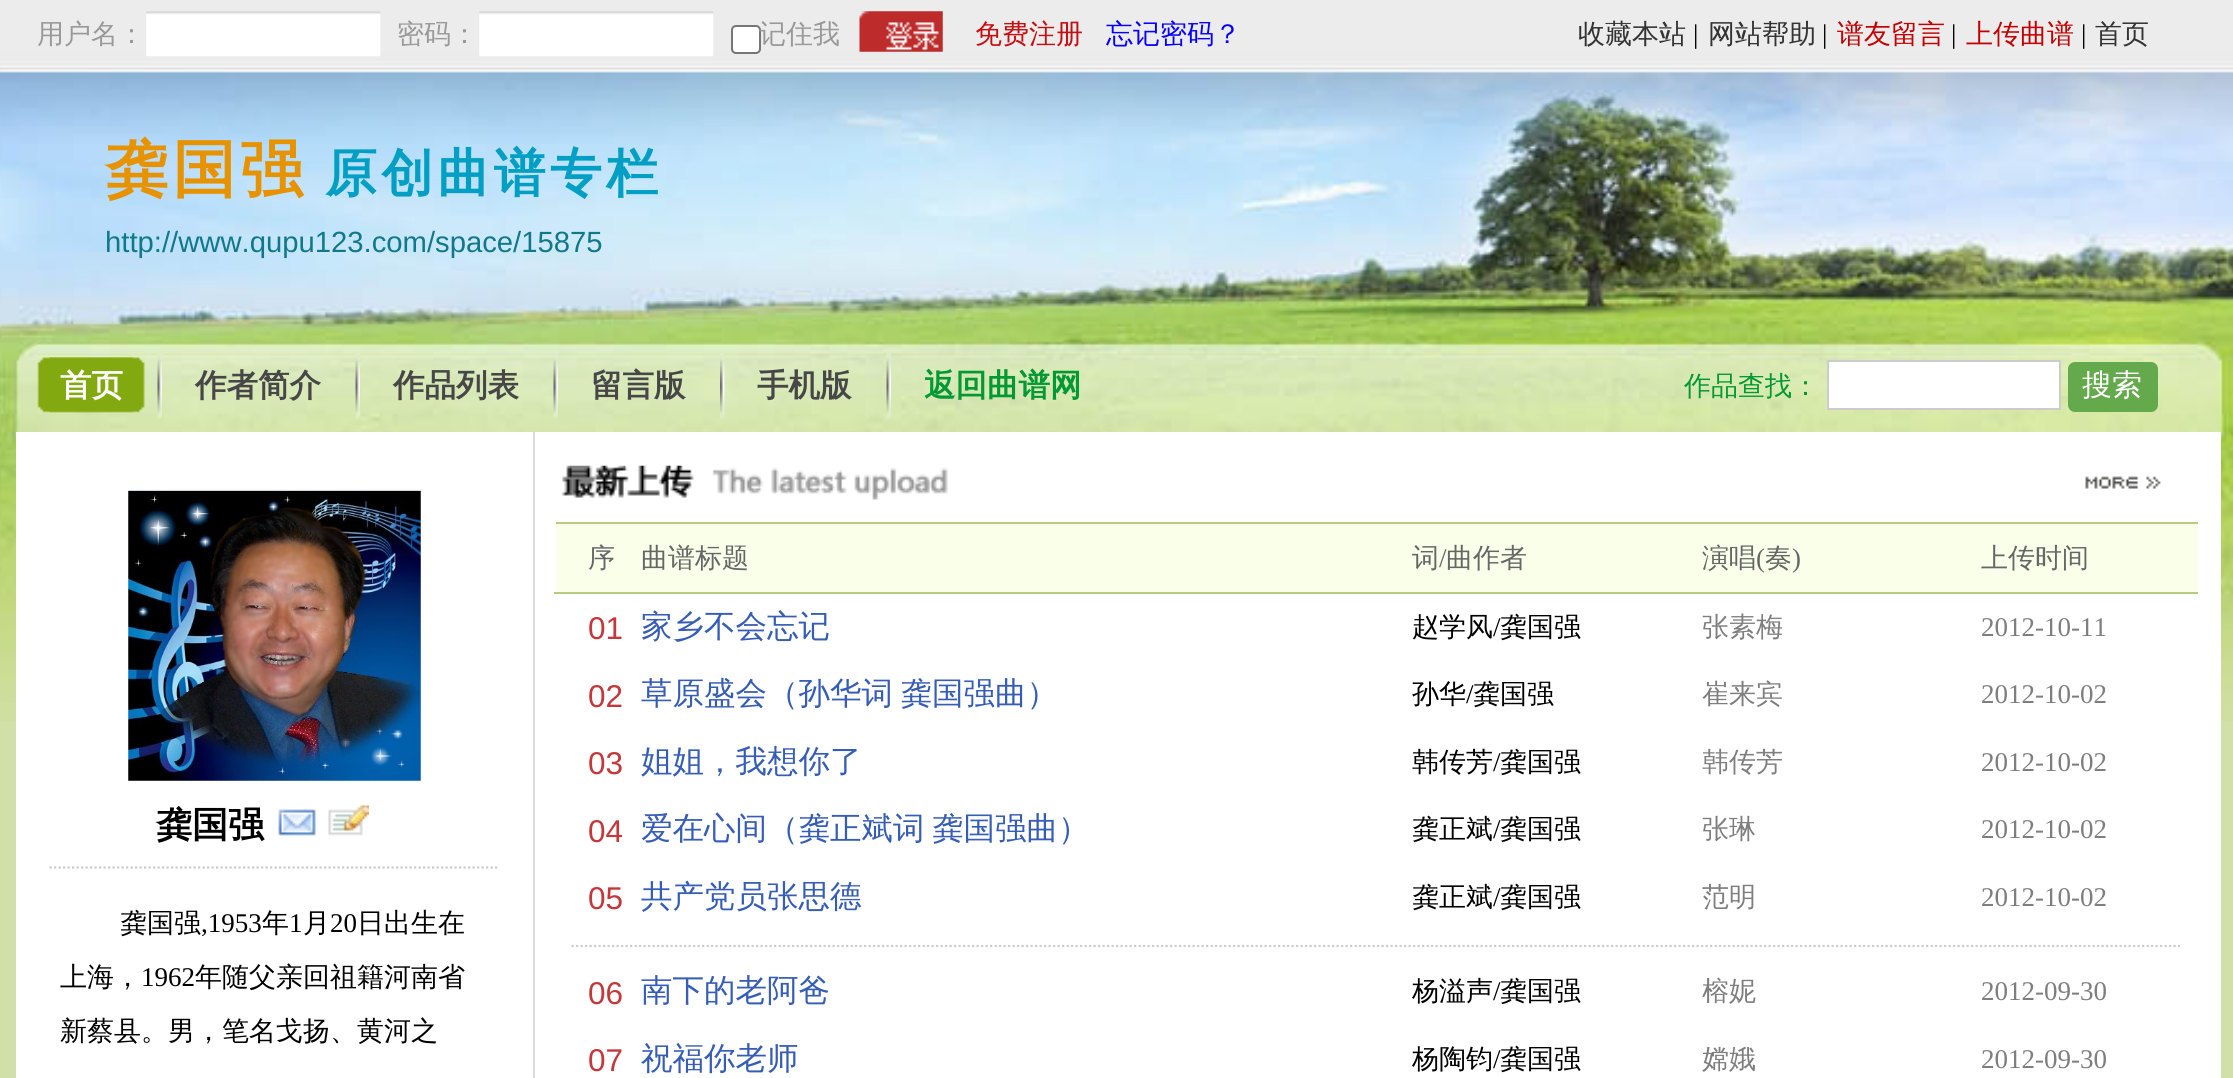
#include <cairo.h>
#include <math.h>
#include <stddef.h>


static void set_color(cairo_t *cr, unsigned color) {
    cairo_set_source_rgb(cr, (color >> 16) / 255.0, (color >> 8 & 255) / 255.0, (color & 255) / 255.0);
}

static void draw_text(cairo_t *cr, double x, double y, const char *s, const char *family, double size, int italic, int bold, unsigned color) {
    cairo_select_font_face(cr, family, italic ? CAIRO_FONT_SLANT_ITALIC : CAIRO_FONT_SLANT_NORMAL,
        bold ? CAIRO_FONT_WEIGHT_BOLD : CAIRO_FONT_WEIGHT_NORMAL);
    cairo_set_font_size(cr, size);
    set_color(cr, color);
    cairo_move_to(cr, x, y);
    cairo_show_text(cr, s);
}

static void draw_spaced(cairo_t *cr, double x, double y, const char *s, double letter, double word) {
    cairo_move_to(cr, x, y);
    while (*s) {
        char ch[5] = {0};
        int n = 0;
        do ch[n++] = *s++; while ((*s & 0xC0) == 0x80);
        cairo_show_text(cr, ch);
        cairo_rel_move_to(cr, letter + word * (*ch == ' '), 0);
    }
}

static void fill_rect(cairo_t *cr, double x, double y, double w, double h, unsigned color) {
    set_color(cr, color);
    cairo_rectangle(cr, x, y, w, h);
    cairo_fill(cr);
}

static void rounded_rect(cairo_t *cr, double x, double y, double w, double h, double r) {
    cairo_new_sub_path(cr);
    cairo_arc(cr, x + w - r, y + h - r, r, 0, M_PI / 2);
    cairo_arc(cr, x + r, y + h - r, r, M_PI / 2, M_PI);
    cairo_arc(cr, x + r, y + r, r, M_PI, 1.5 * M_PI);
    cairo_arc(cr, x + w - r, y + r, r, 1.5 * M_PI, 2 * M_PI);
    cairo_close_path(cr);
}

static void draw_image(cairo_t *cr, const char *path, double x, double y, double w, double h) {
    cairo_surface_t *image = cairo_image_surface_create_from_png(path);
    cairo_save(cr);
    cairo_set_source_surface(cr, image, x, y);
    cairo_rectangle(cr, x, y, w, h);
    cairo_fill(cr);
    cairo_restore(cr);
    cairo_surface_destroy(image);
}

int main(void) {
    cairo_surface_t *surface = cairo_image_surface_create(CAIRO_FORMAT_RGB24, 2233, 1078);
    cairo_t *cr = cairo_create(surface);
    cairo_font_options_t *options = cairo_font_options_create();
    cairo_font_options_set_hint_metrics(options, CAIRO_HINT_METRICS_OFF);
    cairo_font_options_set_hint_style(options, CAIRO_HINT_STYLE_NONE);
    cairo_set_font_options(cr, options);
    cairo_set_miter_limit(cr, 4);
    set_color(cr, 0xD1DFA8);
    cairo_paint(cr);
    draw_image(cr, "assets/img1.png", 0, 0, 2233, 721);
    draw_text(cr, 37, 43, "用户名：", "WenQuanYi Zen Hei Medium", 27, 0, 0, 0x999999);
    draw_image(cr, "assets/img2.png", 146, 11, 235, 46);
    draw_text(cr, 397, 43, "密码：", "WenQuanYi Zen Hei Medium", 27, 0, 0, 0x999999);
    draw_image(cr, "assets/img2.png", 479, 11, 235, 46);
    set_color(cr, 0xFFFFFF);
    rounded_rect(cr, 732, 26, 28, 27, 4);
    cairo_fill_preserve(cr);
    set_color(cr, 0x767676);
    cairo_stroke(cr);
    draw_text(cr, 759, 43, "记住我", "WenQuanYi Zen Hei Medium", 27, 0, 0, 0x999999);
    draw_image(cr, "assets/img3.png", 859, 11, 84, 41);
    draw_text(cr, 975, 43, "免费注册", "WenQuanYi Zen Hei Medium", 27, 0, 0, 0xC60D11);
    draw_text(cr, 1106, 43, "忘记密码？", "WenQuanYi Zen Hei Medium", 27, 0, 0, 0x0600FF);
    draw_text(cr, 1578, 43, "收藏本站", "WenQuanYi Zen Hei Medium", 27, 0, 0, 0x333333);
    draw_text(cr, 1693, 43, "|", "Liberation Serif", 27, 0, 0, 0x000000);
    draw_text(cr, 1708, 43, "网站帮助", "WenQuanYi Zen Hei Medium", 27, 0, 0, 0x333333);
    draw_text(cr, 1822, 43, "|", "Liberation Serif", 27, 0, 0, 0x000000);
    draw_text(cr, 1837, 43, "谱友留言", "WenQuanYi Zen Hei Medium", 27, 0, 0, 0xC10102);
    draw_text(cr, 1951, 43, "|", "Liberation Serif", 27, 0, 0, 0x000000);
    draw_text(cr, 1966, 43, "上传曲谱", "WenQuanYi Zen Hei Medium", 27, 0, 0, 0xC10102);
    draw_text(cr, 2081, 43, "|", "Liberation Serif", 27, 0, 0, 0x000000);
    draw_text(cr, 2095, 43, "首页", "WenQuanYi Zen Hei Medium", 27, 0, 0, 0x333333);
    cairo_select_font_face(cr, "WenQuanYi Zen Hei", CAIRO_FONT_SLANT_NORMAL, CAIRO_FONT_WEIGHT_BOLD);
    cairo_set_font_size(cr, 63);
    set_color(cr, 0xE79300);
    draw_spaced(cr, 105, 191, "龚国强", 4.5, 0);
    cairo_set_font_size(cr, 51.75);
    set_color(cr, 0x009FC3);
    draw_spaced(cr, 325, 191, "原创曲谱专栏", 4.5, 0);
    draw_text(cr, 105, 252, "http://www.qupu123.com/space/15875", "Liberation Sans", 29.25, 0, 0, 0x107989);
    draw_image(cr, "assets/img4.png", 37, 357, 97, 56);
    draw_image(cr, "assets/img5.png", 49, 357, 96, 56);
    draw_text(cr, 60, 396, "首页", "WenQuanYi Zen Hei", 31.5, 0, 1, 0xFFFFFF);
    draw_image(cr, "assets/img6.png", 157, 353, 5, 66);
    draw_text(cr, 195, 396, "作者简介", "WenQuanYi Zen Hei", 31.5, 0, 1, 0x474747);
    draw_image(cr, "assets/img7.png", 355, 353, 5, 66);
    draw_text(cr, 393, 396, "作品列表", "WenQuanYi Zen Hei", 31.5, 0, 1, 0x474747);
    draw_image(cr, "assets/img8.png", 553, 357, 5, 62);
    draw_text(cr, 591, 396, "留言版", "WenQuanYi Zen Hei", 31.5, 0, 1, 0x474747);
    draw_image(cr, "assets/img9.png", 720, 353, 5, 66);
    draw_text(cr, 757, 396, "手机版", "WenQuanYi Zen Hei", 31.5, 0, 1, 0x474747);
    draw_image(cr, "assets/img10.png", 886, 353, 5, 66);
    draw_text(cr, 924, 396, "返回曲谱网", "WenQuanYi Zen Hei", 31.5, 0, 1, 0x009933);
    draw_text(cr, 1684, 395, "作品查找：", "WenQuanYi Zen Hei Medium", 27, 0, 0, 0x009933);
    set_color(cr, 0xFFFFFF);
    cairo_rectangle(cr, 1828, 361, 232, 48);
    cairo_fill_preserve(cr);
    set_color(cr, 0xCCCCCC);
    cairo_stroke(cr);
    set_color(cr, 0x64AA4D);
    rounded_rect(cr, 2068, 362, 90, 50, 7);
    cairo_fill(cr);
    draw_text(cr, 2082, 395, "搜索", "WenQuanYi Zen Hei Medium", 30, 0, 0, 0xFFFFFF);
    fill_rect(cr, 16, 432, 2205, 646, 0xFFFFFF);
    fill_rect(cr, 533, 432, 2, 646, 0xDBDBDB);
    draw_image(cr, "assets/img11.png", 128, 489, 293, 292);
    draw_text(cr, 156, 837, "龚国强", "WenQuanYi Zen Hei", 36, 0, 1, 0x000000);
    draw_image(cr, "assets/img12.png", 278, 809, 38, 27);
    draw_image(cr, "assets/img13.png", 328, 805, 41, 31);
    cairo_new_path(cr);
    cairo_move_to(cr, 49.5, 867.5);
    cairo_line_to(cr, 499.5, 867.5);
    set_color(cr, 0xCCCCCC);
    cairo_set_line_width(cr, 2.2);
    cairo_set_dash(cr, (double[]){2.25, 2.25}, 2, 0);
    cairo_stroke(cr);
    draw_text(cr, 120, 932, "龚国强", "WenQuanYi Zen Hei Medium", 27, 0, 0, 0x000000);
    draw_text(cr, 201, 932, ",1953", "Liberation Serif", 27, 0, 0, 0x000000);
    draw_text(cr, 262, 932, "年", "WenQuanYi Zen Hei Medium", 27, 0, 0, 0x000000);
    draw_text(cr, 289, 932, "1", "Liberation Serif", 27, 0, 0, 0x000000);
    draw_text(cr, 303, 932, "月", "WenQuanYi Zen Hei Medium", 27, 0, 0, 0x000000);
    draw_text(cr, 330, 932, "20", "Liberation Serif", 27, 0, 0, 0x000000);
    draw_text(cr, 357, 932, "日出生在", "WenQuanYi Zen Hei Medium", 27, 0, 0, 0x000000);
    draw_text(cr, 60, 986, "上海，", "WenQuanYi Zen Hei Medium", 27, 0, 0, 0x000000);
    draw_text(cr, 141, 986, "1962", "Liberation Serif", 27, 0, 0, 0x000000);
    draw_text(cr, 195, 986, "年随父亲回祖籍河南省", "WenQuanYi Zen Hei Medium", 27, 0, 0, 0x000000);
    draw_text(cr, 60, 1040, "新蔡县。男，笔名戈扬、黄河之", "WenQuanYi Zen Hei Medium", 27, 0, 0, 0x000000);
    draw_image(cr, "assets/img14.png", 562, 465, 386, 35);
    fill_rect(cr, 556, 522, 1642, 2, 0xB7CE80);
    draw_image(cr, "assets/img15.png", 2085, 476, 76, 13);
    fill_rect(cr, 556, 524, 1642, 68, 0xFAFFEA);
    draw_text(cr, 588, 567, "序", "WenQuanYi Zen Hei Medium", 27, 0, 0, 0x666666);
    draw_text(cr, 641, 567, "曲谱标题", "WenQuanYi Zen Hei Medium", 27, 0, 0, 0x666666);
    draw_text(cr, 1412, 567, "词", "WenQuanYi Zen Hei Medium", 27, 0, 0, 0x666666);
    draw_text(cr, 1439, 567, "/", "Liberation Serif", 27, 0, 0, 0x666666);
    draw_text(cr, 1446, 567, "曲作者", "WenQuanYi Zen Hei Medium", 27, 0, 0, 0x666666);
    draw_text(cr, 1702, 567, "演唱", "WenQuanYi Zen Hei Medium", 27, 0, 0, 0x666666);
    draw_text(cr, 1756, 567, "(", "Liberation Serif", 27, 0, 0, 0x666666);
    draw_text(cr, 1765, 567, "奏", "WenQuanYi Zen Hei Medium", 27, 0, 0, 0x666666);
    draw_text(cr, 1792, 567, ")", "Liberation Serif", 27, 0, 0, 0x666666);
    fill_rect(cr, 554, 592, 1644, 2, 0xB7CE80);
    draw_text(cr, 1981, 567, "上传时间", "WenQuanYi Zen Hei Medium", 27, 0, 0, 0x666666);
    draw_text(cr, 588, 639, "01", "Liberation Sans", 31.5, 0, 0, 0xC4373A);
    draw_text(cr, 641, 637, "家乡不会忘记", "WenQuanYi Zen Hei Medium", 31.5, 0, 0, 0x355CB6);
    draw_text(cr, 1412, 636, "赵学风", "WenQuanYi Zen Hei Medium", 27, 0, 0, 0x000000);
    draw_text(cr, 1493, 636, "/", "Liberation Serif", 27, 0, 0, 0x000000);
    draw_text(cr, 1500, 636, "龚国强", "WenQuanYi Zen Hei Medium", 27, 0, 0, 0x000000);
    draw_text(cr, 1702, 636, "张素梅", "WenQuanYi Zen Hei Medium", 27, 0, 0, 0x7E7E7E);
    draw_text(cr, 1981, 636, "2012-10-11", "Liberation Serif", 27, 0, 0, 0x7E7E7E);
    draw_text(cr, 588, 707, "02", "Liberation Sans", 31.5, 0, 0, 0xC4373A);
    cairo_select_font_face(cr, "WenQuanYi Zen Hei Medium", CAIRO_FONT_SLANT_NORMAL, CAIRO_FONT_WEIGHT_NORMAL);
    set_color(cr, 0x355CB6);
    draw_spaced(cr, 641, 704, "草原盛会（孙华词 龚国强曲）", 0, -2);
    draw_text(cr, 1412, 703, "孙华", "WenQuanYi Zen Hei Medium", 27, 0, 0, 0x000000);
    draw_text(cr, 1466, 703, "/", "Liberation Serif", 27, 0, 0, 0x000000);
    draw_text(cr, 1473, 703, "龚国强", "WenQuanYi Zen Hei Medium", 27, 0, 0, 0x000000);
    draw_text(cr, 1702, 703, "崔来宾", "WenQuanYi Zen Hei Medium", 27, 0, 0, 0x7E7E7E);
    draw_text(cr, 1981, 703, "2012-10-02", "Liberation Serif", 27, 0, 0, 0x7E7E7E);
    draw_text(cr, 588, 774, "03", "Liberation Sans", 31.5, 0, 0, 0xC4373A);
    draw_text(cr, 641, 772, "姐姐，我想你了", "WenQuanYi Zen Hei Medium", 31.5, 0, 0, 0x355CB6);
    draw_text(cr, 1412, 771, "韩传芳", "WenQuanYi Zen Hei Medium", 27, 0, 0, 0x000000);
    draw_text(cr, 1493, 771, "/", "Liberation Serif", 27, 0, 0, 0x000000);
    draw_text(cr, 1500, 771, "龚国强", "WenQuanYi Zen Hei Medium", 27, 0, 0, 0x000000);
    draw_text(cr, 1702, 771, "韩传芳", "WenQuanYi Zen Hei Medium", 27, 0, 0, 0x7E7E7E);
    draw_text(cr, 1981, 771, "2012-10-02", "Liberation Serif", 27, 0, 0, 0x7E7E7E);
    draw_text(cr, 588, 842, "04", "Liberation Sans", 31.5, 0, 0, 0xC4373A);
    cairo_select_font_face(cr, "WenQuanYi Zen Hei Medium", CAIRO_FONT_SLANT_NORMAL, CAIRO_FONT_WEIGHT_NORMAL);
    set_color(cr, 0x355CB6);
    draw_spaced(cr, 641, 839, "爱在心间（龚正斌词 龚国强曲）", 0, -2);
    draw_text(cr, 1412, 838, "龚正斌", "WenQuanYi Zen Hei Medium", 27, 0, 0, 0x000000);
    draw_text(cr, 1493, 838, "/", "Liberation Serif", 27, 0, 0, 0x000000);
    draw_text(cr, 1500, 838, "龚国强", "WenQuanYi Zen Hei Medium", 27, 0, 0, 0x000000);
    draw_text(cr, 1702, 838, "张琳", "WenQuanYi Zen Hei Medium", 27, 0, 0, 0x7E7E7E);
    draw_text(cr, 1981, 838, "2012-10-02", "Liberation Serif", 27, 0, 0, 0x7E7E7E);
    draw_text(cr, 588, 909, "05", "Liberation Sans", 31.5, 0, 0, 0xC4373A);
    draw_text(cr, 641, 907, "共产党员张思德", "WenQuanYi Zen Hei Medium", 31.5, 0, 0, 0x355CB6);
    draw_text(cr, 1412, 906, "龚正斌", "WenQuanYi Zen Hei Medium", 27, 0, 0, 0x000000);
    draw_text(cr, 1493, 906, "/", "Liberation Serif", 27, 0, 0, 0x000000);
    draw_text(cr, 1500, 906, "龚国强", "WenQuanYi Zen Hei Medium", 27, 0, 0, 0x000000);
    draw_text(cr, 1702, 906, "范明", "WenQuanYi Zen Hei Medium", 27, 0, 0, 0x7E7E7E);
    draw_text(cr, 1981, 906, "2012-10-02", "Liberation Serif", 27, 0, 0, 0x7E7E7E);
    cairo_new_path(cr);
    cairo_move_to(cr, 571.5, 946);
    cairo_line_to(cr, 2180, 946);
    set_color(cr, 0xCCCCCC);
    cairo_stroke(cr);
    draw_text(cr, 588, 1004, "06", "Liberation Sans", 31.5, 0, 0, 0xC4373A);
    draw_text(cr, 641, 1001, "南下的老阿爸", "WenQuanYi Zen Hei Medium", 31.5, 0, 0, 0x355CB6);
    draw_text(cr, 1412, 1000, "杨溢声", "WenQuanYi Zen Hei Medium", 27, 0, 0, 0x000000);
    draw_text(cr, 1493, 1000, "/", "Liberation Serif", 27, 0, 0, 0x000000);
    draw_text(cr, 1500, 1000, "龚国强", "WenQuanYi Zen Hei Medium", 27, 0, 0, 0x000000);
    draw_text(cr, 1702, 1000, "榕妮", "WenQuanYi Zen Hei Medium", 27, 0, 0, 0x7E7E7E);
    draw_text(cr, 1981, 1000, "2012-09-30", "Liberation Serif", 27, 0, 0, 0x7E7E7E);
    draw_text(cr, 588, 1071, "07", "Liberation Sans", 31.5, 0, 0, 0xC4373A);
    draw_text(cr, 641, 1069, "祝福你老师", "WenQuanYi Zen Hei Medium", 31.5, 0, 0, 0x355CB6);
    draw_text(cr, 1412, 1068, "杨陶钧", "WenQuanYi Zen Hei Medium", 27, 0, 0, 0x000000);
    draw_text(cr, 1493, 1068, "/", "Liberation Serif", 27, 0, 0, 0x000000);
    draw_text(cr, 1500, 1068, "龚国强", "WenQuanYi Zen Hei Medium", 27, 0, 0, 0x000000);
    draw_text(cr, 1702, 1068, "嫦娥", "WenQuanYi Zen Hei Medium", 27, 0, 0, 0x7E7E7E);
    draw_text(cr, 1981, 1068, "2012-09-30", "Liberation Serif", 27, 0, 0, 0x7E7E7E);
    cairo_surface_write_to_png(surface, "output.png");
    cairo_font_options_destroy(options);
    cairo_destroy(cr);
    cairo_surface_destroy(surface);
    return 0;
}
